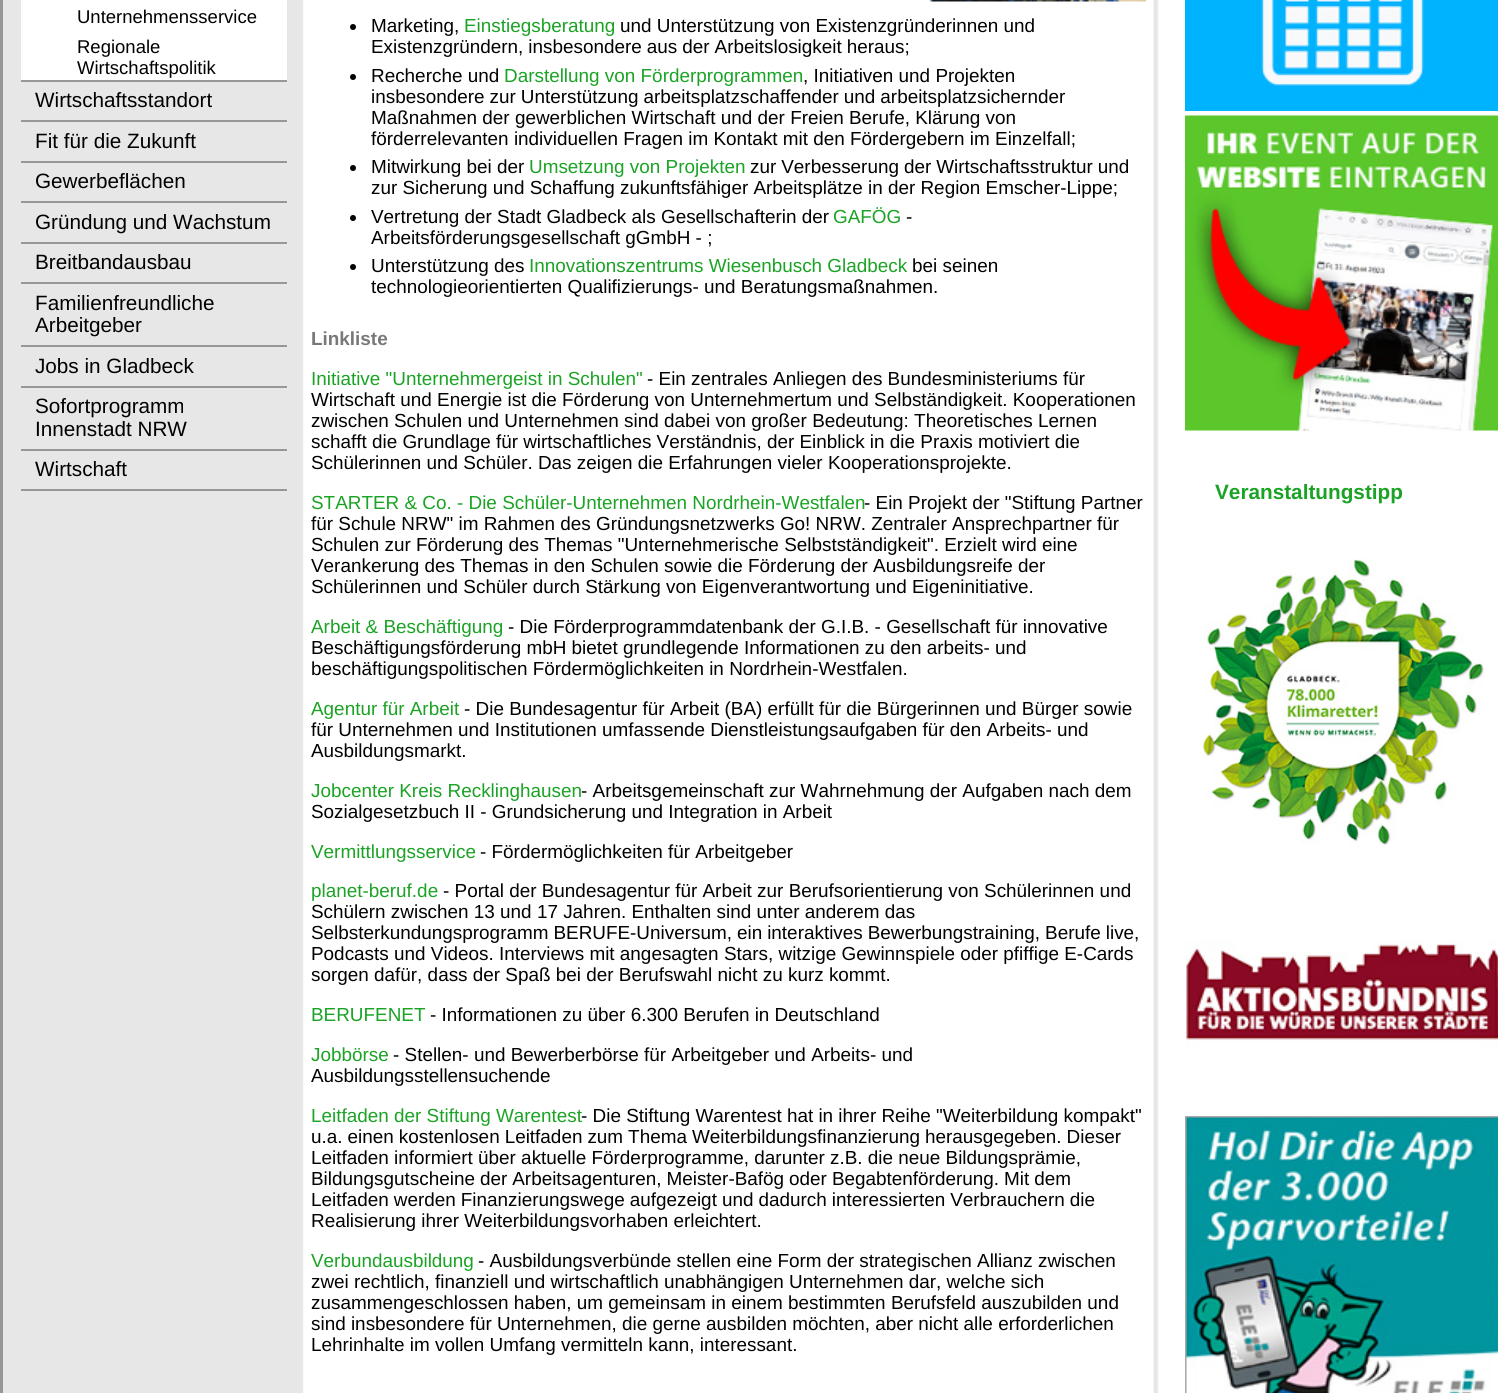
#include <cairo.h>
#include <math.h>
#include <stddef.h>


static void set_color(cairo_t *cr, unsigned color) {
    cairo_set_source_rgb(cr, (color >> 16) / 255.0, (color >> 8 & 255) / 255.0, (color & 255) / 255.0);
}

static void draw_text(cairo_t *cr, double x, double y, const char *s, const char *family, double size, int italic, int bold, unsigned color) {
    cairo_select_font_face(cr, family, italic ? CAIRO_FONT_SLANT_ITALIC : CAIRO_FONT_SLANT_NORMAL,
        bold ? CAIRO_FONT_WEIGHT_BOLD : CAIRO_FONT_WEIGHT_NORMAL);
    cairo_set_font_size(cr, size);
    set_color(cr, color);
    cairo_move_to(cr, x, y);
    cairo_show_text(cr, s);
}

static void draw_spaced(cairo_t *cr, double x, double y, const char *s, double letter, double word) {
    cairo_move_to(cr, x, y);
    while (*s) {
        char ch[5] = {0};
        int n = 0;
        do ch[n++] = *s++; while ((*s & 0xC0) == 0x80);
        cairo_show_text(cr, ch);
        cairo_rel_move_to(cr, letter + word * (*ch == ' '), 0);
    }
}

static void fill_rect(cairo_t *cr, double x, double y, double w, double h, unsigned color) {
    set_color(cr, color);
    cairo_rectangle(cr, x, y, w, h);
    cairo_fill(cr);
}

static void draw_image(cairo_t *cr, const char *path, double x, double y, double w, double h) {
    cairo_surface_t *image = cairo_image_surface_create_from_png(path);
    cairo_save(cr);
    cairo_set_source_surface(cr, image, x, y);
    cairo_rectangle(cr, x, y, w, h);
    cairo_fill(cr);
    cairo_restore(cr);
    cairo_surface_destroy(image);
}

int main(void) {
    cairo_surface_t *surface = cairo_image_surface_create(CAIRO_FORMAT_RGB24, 1498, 1393);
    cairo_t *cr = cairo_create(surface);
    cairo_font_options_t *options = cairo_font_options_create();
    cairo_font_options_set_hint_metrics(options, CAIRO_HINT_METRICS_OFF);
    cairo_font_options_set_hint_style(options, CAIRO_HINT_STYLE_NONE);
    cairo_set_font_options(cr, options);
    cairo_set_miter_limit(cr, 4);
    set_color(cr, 0xFFFFFF);
    cairo_paint(cr);
    draw_image(cr, "assets/img1.png", 3, 0, 1495, 1393);
    fill_rect(cr, 0, 0, 3, 1393, 0x979795);
    fill_rect(cr, 21, 0, 266, 80, 0xFFFFFF);
    draw_text(cr, 77, 23, "Unternehmensservice", "Liberation Sans", 18.5, 0, 0, 0x000000);
    draw_text(cr, 77, 53, "Regionale", "Liberation Sans", 18.5, 0, 0, 0x000000);
    draw_text(cr, 77, 74, "Wirtschaftspolitik", "Liberation Sans", 18.5, 0, 0, 0x000000);
    fill_rect(cr, 21, 80, 266, 2, 0x979795);
    draw_text(cr, 35, 107, "Wirtschaftsstandort", "Liberation Sans", 20.7, 0, 0, 0x000000);
    fill_rect(cr, 21, 120, 266, 2, 0x979795);
    draw_text(cr, 35, 148, "Fit für die Zukunft", "Liberation Sans", 20.7, 0, 0, 0x000000);
    fill_rect(cr, 21, 161, 266, 2, 0x979795);
    draw_text(cr, 35, 188, "Gewerbeflächen", "Liberation Sans", 20.7, 0, 0, 0x000000);
    fill_rect(cr, 21, 201, 266, 2, 0x979795);
    draw_text(cr, 35, 229, "Gründung und Wachstum", "Liberation Sans", 20.7, 0, 0, 0x000000);
    fill_rect(cr, 21, 242, 266, 2, 0x979795);
    draw_text(cr, 35, 269, "Breitbandausbau", "Liberation Sans", 20.7, 0, 0, 0x000000);
    fill_rect(cr, 21, 282, 266, 2, 0x979795);
    draw_text(cr, 35, 310, "Familienfreundliche", "Liberation Sans", 20.7, 0, 0, 0x000000);
    draw_text(cr, 35, 332, "Arbeitgeber", "Liberation Sans", 20.7, 0, 0, 0x000000);
    fill_rect(cr, 21, 345, 266, 2, 0x979795);
    draw_text(cr, 35, 373, "Jobs in Gladbeck", "Liberation Sans", 20.7, 0, 0, 0x000000);
    fill_rect(cr, 21, 386, 266, 2, 0x979795);
    draw_text(cr, 35, 413, "Sofortprogramm", "Liberation Sans", 20.7, 0, 0, 0x000000);
    draw_text(cr, 35, 436, "Innenstadt NRW", "Liberation Sans", 20.7, 0, 0, 0x000000);
    fill_rect(cr, 21, 449, 266, 2, 0x979795);
    draw_text(cr, 35, 476, "Wirtschaft", "Liberation Sans", 20.7, 0, 0, 0x000000);
    fill_rect(cr, 21, 489, 266, 2, 0x979795);
    draw_image(cr, "assets/img2.png", 930, 0, 216, 2);
    set_color(cr, 0x000200);
    cairo_arc(cr, 353, 27, 3, 0, 2 * M_PI);
    cairo_fill(cr);
    draw_text(cr, 371, 32, "Marketing,", "Liberation Sans", 18.9, 0, 0, 0x000000);
    draw_text(cr, 464, 32, "Einstiegsberatung", "Liberation Sans", 18.9, 0, 0, 0x1AA324);
    draw_text(cr, 620, 32, "und Unterstützung von Existenzgründerinnen und", "Liberation Sans", 18.9, 0, 0, 0x000000);
    draw_spaced(cr, 371, 53, "Existenzgründern, insbesondere aus der Arbeitslosigkeit heraus;", 0, -0.25);
    set_color(cr, 0x000200);
    cairo_new_path(cr);
    cairo_arc(cr, 353, 77, 3, 0, 2 * M_PI);
    cairo_fill(cr);
    draw_text(cr, 371, 82, "Recherche und", "Liberation Sans", 18.9, 0, 0, 0x000000);
    draw_text(cr, 504, 82, "Darstellung von Förderprogrammen", "Liberation Sans", 18.9, 0, 0, 0x1AA324);
    draw_text(cr, 803, 82, ", Initiativen und Projekten", "Liberation Sans", 18.9, 0, 0, 0x000000);
    draw_spaced(cr, 371, 103, "insbesondere zur Unterstützung arbeitsplatzschaffender und arbeitsplatzsichernder", 0, -0.25);
    draw_text(cr, 371, 124, "Maßnahmen der gewerblichen Wirtschaft und der Freien Berufe, Klärung von", "Liberation Sans", 18.9, 0, 0, 0x000000);
    draw_text(cr, 371, 145, "förderrelevanten individuellen Fragen im Kontakt mit den Fördergebern im Einzelfall;", "Liberation Sans", 18.9, 0, 0, 0x000000);
    set_color(cr, 0x000200);
    cairo_new_path(cr);
    cairo_arc(cr, 353, 168, 3, 0, 2 * M_PI);
    cairo_fill(cr);
    draw_text(cr, 371, 173, "Mitwirkung bei der", "Liberation Sans", 18.9, 0, 0, 0x000000);
    draw_text(cr, 529, 173, "Umsetzung von Projekten", "Liberation Sans", 18.9, 0, 0, 0x1AA324);
    set_color(cr, 0x000000);
    draw_spaced(cr, 750, 173, "zur Verbesserung der Wirtschaftsstruktur und", 0, -0.25);
    draw_text(cr, 371, 194, "zur Sicherung und Schaffung zukunftsfähiger Arbeitsplätze in der Region Emscher-Lippe;", "Liberation Sans", 18.9, 0, 0, 0x000000);
    set_color(cr, 0x000200);
    cairo_new_path(cr);
    cairo_arc(cr, 353, 218, 3, 0, 2 * M_PI);
    cairo_fill(cr);
    draw_text(cr, 371, 223, "Vertretung der Stadt Gladbeck als Gesellschafterin der", "Liberation Sans", 18.9, 0, 0, 0x000000);
    draw_text(cr, 833, 223, "GAFÖG", "Liberation Sans", 18.9, 0, 0, 0x1AA324);
    draw_text(cr, 906, 223, "-", "Liberation Sans", 18.9, 0, 0, 0x000000);
    draw_text(cr, 371, 244, "Arbeitsförderungsgesellschaft gGmbH - ;", "Liberation Sans", 18.9, 0, 0, 0x000000);
    set_color(cr, 0x000200);
    cairo_new_path(cr);
    cairo_arc(cr, 353, 267, 3, 0, 2 * M_PI);
    cairo_fill(cr);
    draw_text(cr, 371, 272, "Unterstützung des", "Liberation Sans", 18.9, 0, 0, 0x000000);
    draw_text(cr, 529, 272, "Innovationszentrums Wiesenbusch Gladbeck", "Liberation Sans", 18.9, 0, 0, 0x1AA324);
    draw_text(cr, 912, 272, "bei seinen", "Liberation Sans", 18.9, 0, 0, 0x000000);
    draw_text(cr, 371, 293, "technologieorientierten Qualifizierungs- und Beratungsmaßnahmen.", "Liberation Sans", 18.9, 0, 0, 0x000000);
    draw_text(cr, 311, 345, "Linkliste", "Liberation Sans", 18.9, 0, 1, 0x787878);
    draw_text(cr, 311, 385, "Initiative \"Unternehmergeist in Schulen\"", "Liberation Sans", 18.9, 0, 0, 0x1AA324);
    draw_text(cr, 647, 385, "- Ein zentrales Anliegen des Bundesministeriums für", "Liberation Sans", 18.9, 0, 0, 0x000000);
    draw_text(cr, 311, 406, "Wirtschaft und Energie ist die Förderung von Unternehmertum und Selbständigkeit. Kooperationen", "Liberation Sans", 18.9, 0, 0, 0x000000);
    draw_text(cr, 311, 427, "zwischen Schulen und Unternehmen sind dabei von großer Bedeutung: Theoretisches Lernen", "Liberation Sans", 18.9, 0, 0, 0x000000);
    draw_text(cr, 311, 448, "schafft die Grundlage für wirtschaftliches Verständnis, der Einblick in die Praxis motiviert die", "Liberation Sans", 18.9, 0, 0, 0x000000);
    draw_text(cr, 311, 469, "Schülerinnen und Schüler. Das zeigen die Erfahrungen vieler Kooperationsprojekte.", "Liberation Sans", 18.9, 0, 0, 0x000000);
    draw_text(cr, 311, 509, "STARTER & Co. - Die Schüler-Unternehmen Nordrhein-Westfalen", "Liberation Sans", 18.9, 0, 0, 0x1AA324);
    draw_text(cr, 864, 509, "- Ein Projekt der \"Stiftung Partner", "Liberation Sans", 18.9, 0, 0, 0x000000);
    draw_text(cr, 311, 530, "für Schule NRW\" im Rahmen des Gründungsnetzwerks Go! NRW. Zentraler Ansprechpartner für", "Liberation Sans", 18.9, 0, 0, 0x000000);
    draw_text(cr, 311, 551, "Schulen zur Förderung des Themas \"Unternehmerische Selbstständigkeit\". Erzielt wird eine", "Liberation Sans", 18.9, 0, 0, 0x000000);
    draw_text(cr, 311, 572, "Verankerung des Themas in den Schulen sowie die Förderung der Ausbildungsreife der", "Liberation Sans", 18.9, 0, 0, 0x000000);
    draw_text(cr, 311, 593, "Schülerinnen und Schüler durch Stärkung von Eigenverantwortung und Eigeninitiative.", "Liberation Sans", 18.9, 0, 0, 0x000000);
    draw_text(cr, 311, 633, "Arbeit & Beschäftigung", "Liberation Sans", 18.9, 0, 0, 0x1AA324);
    draw_text(cr, 508, 633, "- Die Förderprogrammdatenbank der G.I.B. - Gesellschaft für innovative", "Liberation Sans", 18.9, 0, 0, 0x000000);
    draw_text(cr, 311, 654, "Beschäftigungsförderung mbH bietet grundlegende Informationen zu den arbeits- und", "Liberation Sans", 18.9, 0, 0, 0x000000);
    draw_text(cr, 311, 675, "beschäftigungspolitischen Fördermöglichkeiten in Nordrhein-Westfalen.", "Liberation Sans", 18.9, 0, 0, 0x000000);
    draw_text(cr, 311, 715, "Agentur für Arbeit", "Liberation Sans", 18.9, 0, 0, 0x1AA324);
    draw_text(cr, 464, 715, "- Die Bundesagentur für Arbeit (BA) erfüllt für die Bürgerinnen und Bürger sowie", "Liberation Sans", 18.9, 0, 0, 0x000000);
    draw_text(cr, 311, 736, "für Unternehmen und Institutionen umfassende Dienstleistungsaufgaben für den Arbeits- und", "Liberation Sans", 18.9, 0, 0, 0x000000);
    draw_text(cr, 311, 757, "Ausbildungsmarkt.", "Liberation Sans", 18.9, 0, 0, 0x000000);
    draw_text(cr, 311, 797, "Jobcenter Kreis Recklinghausen", "Liberation Sans", 18.9, 0, 0, 0x1AA324);
    draw_text(cr, 581, 797, "- Arbeitsgemeinschaft zur Wahrnehmung der Aufgaben nach dem", "Liberation Sans", 18.9, 0, 0, 0x000000);
    draw_text(cr, 311, 818, "Sozialgesetzbuch II - Grundsicherung und Integration in Arbeit", "Liberation Sans", 18.9, 0, 0, 0x000000);
    draw_text(cr, 311, 858, "Vermittlungsservice", "Liberation Sans", 18.9, 0, 0, 0x1AA324);
    draw_text(cr, 480, 858, "- Fördermöglichkeiten für Arbeitgeber", "Liberation Sans", 18.9, 0, 0, 0x000000);
    draw_text(cr, 311, 897, "planet-beruf.de", "Liberation Sans", 18.9, 0, 0, 0x1AA324);
    draw_text(cr, 443, 897, "- Portal der Bundesagentur für Arbeit zur Berufsorientierung von Schülerinnen und", "Liberation Sans", 18.9, 0, 0, 0x000000);
    draw_text(cr, 311, 918, "Schülern zwischen 13 und 17 Jahren. Enthalten sind unter anderem das", "Liberation Sans", 18.9, 0, 0, 0x000000);
    draw_spaced(cr, 311, 939, "Selbsterkundungsprogramm BERUFE-Universum, ein interaktives Bewerbungstraining, Berufe live,", 0, -0.25);
    draw_text(cr, 311, 960, "Podcasts und Videos. Interviews mit angesagten Stars, witzige Gewinnspiele oder pfiffige E-Cards", "Liberation Sans", 18.9, 0, 0, 0x000000);
    draw_text(cr, 311, 981, "sorgen dafür, dass der Spaß bei der Berufswahl nicht zu kurz kommt.", "Liberation Sans", 18.9, 0, 0, 0x000000);
    draw_text(cr, 311, 1021, "BERUFENET", "Liberation Sans", 18.9, 0, 0, 0x1AA324);
    draw_text(cr, 430, 1021, "- Informationen zu über 6.300 Berufen in Deutschland", "Liberation Sans", 18.9, 0, 0, 0x000000);
    draw_text(cr, 311, 1061, "Jobbörse", "Liberation Sans", 18.9, 0, 0, 0x1AA324);
    draw_text(cr, 393, 1061, "- Stellen- und Bewerberbörse für Arbeitgeber und Arbeits- und", "Liberation Sans", 18.9, 0, 0, 0x000000);
    draw_text(cr, 311, 1082, "Ausbildungsstellensuchende", "Liberation Sans", 18.9, 0, 0, 0x000000);
    draw_text(cr, 311, 1122, "Leitfaden der Stiftung Warentest", "Liberation Sans", 18.9, 0, 0, 0x1AA324);
    draw_text(cr, 581, 1122, "- Die Stiftung Warentest hat in ihrer Reihe \"Weiterbildung kompakt\"", "Liberation Sans", 18.9, 0, 0, 0x000000);
    draw_spaced(cr, 311, 1143, "u.a. einen kostenlosen Leitfaden zum Thema Weiterbildungsfinanzierung herausgegeben. Dieser", 0, -0.25);
    draw_text(cr, 311, 1164, "Leitfaden informiert über aktuelle Förderprogramme, darunter z.B. die neue Bildungsprämie,", "Liberation Sans", 18.9, 0, 0, 0x000000);
    draw_spaced(cr, 311, 1185, "Bildungsgutscheine der Arbeitsagenturen, Meister-Bafög oder Begabtenförderung. Mit dem", 0, -0.25);
    draw_spaced(cr, 311, 1206, "Leitfaden werden Finanzierungswege aufgezeigt und dadurch interessierten Verbrauchern die", 0, -0.25);
    draw_text(cr, 311, 1227, "Realisierung ihrer Weiterbildungsvorhaben erleichtert.", "Liberation Sans", 18.9, 0, 0, 0x000000);
    draw_text(cr, 311, 1267, "Verbundausbildung", "Liberation Sans", 18.9, 0, 0, 0x1AA324);
    draw_text(cr, 478, 1267, "- Ausbildungsverbünde stellen eine Form der strategischen Allianz zwischen", "Liberation Sans", 18.9, 0, 0, 0x000000);
    draw_text(cr, 311, 1288, "zwei rechtlich, finanziell und wirtschaftlich unabhängigen Unternehmen dar, welche sich", "Liberation Sans", 18.9, 0, 0, 0x000000);
    draw_text(cr, 311, 1309, "zusammengeschlossen haben, um gemeinsam in einem bestimmten Berufsfeld auszubilden und", "Liberation Sans", 18.9, 0, 0, 0x000000);
    draw_text(cr, 311, 1330, "sind insbesondere für Unternehmen, die gerne ausbilden möchten, aber nicht alle erforderlichen", "Liberation Sans", 18.9, 0, 0, 0x000000);
    draw_text(cr, 311, 1351, "Lehrinhalte im vollen Umfang vermitteln kann, interessant.", "Liberation Sans", 18.9, 0, 0, 0x000000);
    draw_image(cr, "assets/img3.png", 1185, 0, 313, 111);
    draw_image(cr, "assets/img4.png", 1185, 115, 313, 316);
    draw_text(cr, 1215, 499, "Veranstaltungstipp", "Liberation Sans", 20.75, 0, 1, 0x1AA324);
    draw_image(cr, "assets/img5.png", 1200, 558, 284, 287);
    draw_image(cr, "assets/img6.png", 1185, 941, 313, 107);
    draw_image(cr, "assets/img7.png", 1185, 1116, 313, 277);
    cairo_surface_write_to_png(surface, "output.png");
    cairo_font_options_destroy(options);
    cairo_destroy(cr);
    cairo_surface_destroy(surface);
    return 0;
}
